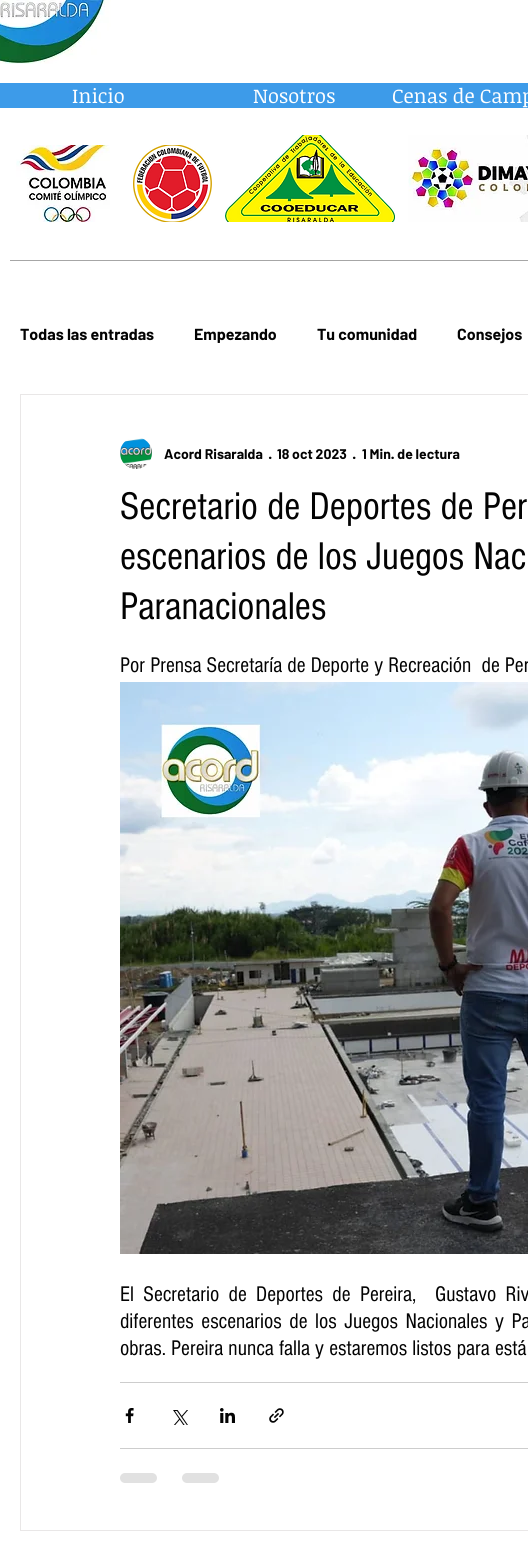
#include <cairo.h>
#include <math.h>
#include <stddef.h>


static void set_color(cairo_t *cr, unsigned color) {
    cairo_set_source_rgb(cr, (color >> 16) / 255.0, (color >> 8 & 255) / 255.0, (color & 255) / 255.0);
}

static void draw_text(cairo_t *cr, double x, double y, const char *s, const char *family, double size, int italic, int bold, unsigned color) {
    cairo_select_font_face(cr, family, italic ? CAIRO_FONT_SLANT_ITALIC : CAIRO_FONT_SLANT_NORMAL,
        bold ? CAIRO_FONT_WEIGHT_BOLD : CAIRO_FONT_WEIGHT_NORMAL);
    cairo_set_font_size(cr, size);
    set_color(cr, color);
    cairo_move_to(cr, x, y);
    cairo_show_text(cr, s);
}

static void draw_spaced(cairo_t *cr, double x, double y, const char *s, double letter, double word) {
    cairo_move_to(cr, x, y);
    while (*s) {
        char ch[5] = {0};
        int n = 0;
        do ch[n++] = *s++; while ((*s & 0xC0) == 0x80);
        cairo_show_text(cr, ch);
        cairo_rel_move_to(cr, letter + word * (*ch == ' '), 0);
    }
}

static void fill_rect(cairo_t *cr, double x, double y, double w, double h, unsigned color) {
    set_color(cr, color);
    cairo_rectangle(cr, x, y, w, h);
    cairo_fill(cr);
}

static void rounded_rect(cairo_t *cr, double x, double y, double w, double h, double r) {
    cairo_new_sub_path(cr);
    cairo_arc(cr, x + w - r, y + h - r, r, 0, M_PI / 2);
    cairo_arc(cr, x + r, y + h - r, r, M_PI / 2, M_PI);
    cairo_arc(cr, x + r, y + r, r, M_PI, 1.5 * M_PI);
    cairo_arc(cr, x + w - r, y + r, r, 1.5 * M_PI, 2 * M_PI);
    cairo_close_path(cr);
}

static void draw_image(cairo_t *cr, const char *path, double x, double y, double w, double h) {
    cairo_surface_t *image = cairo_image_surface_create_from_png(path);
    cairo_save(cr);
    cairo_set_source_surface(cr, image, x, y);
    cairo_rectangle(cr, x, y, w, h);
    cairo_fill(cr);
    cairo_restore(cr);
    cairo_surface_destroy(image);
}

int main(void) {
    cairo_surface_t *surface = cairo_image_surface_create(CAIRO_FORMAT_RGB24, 528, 1553);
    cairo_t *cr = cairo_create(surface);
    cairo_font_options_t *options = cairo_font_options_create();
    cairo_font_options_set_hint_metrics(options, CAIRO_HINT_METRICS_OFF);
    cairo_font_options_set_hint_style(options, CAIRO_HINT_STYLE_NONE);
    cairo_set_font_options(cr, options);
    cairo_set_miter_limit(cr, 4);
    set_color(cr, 0xFFFFFF);
    cairo_paint(cr);
    draw_image(cr, "assets/img1.png", 0, 0, 111, 64);
    fill_rect(cr, 0, 83, 528, 25, 0x3D9BE9);
    draw_text(cr, 72, 103, "Inicio", "Noticia Text", 20, 0, 0, 0xFFFFFF);
    draw_text(cr, 253, 103, "Nosotros", "Noticia Text", 20, 0, 0, 0xFFFFFF);
    draw_text(cr, 392, 103, "Cenas de Camp", "Noticia Text", 20, 0, 0, 0xFFFFFF);
    draw_image(cr, "assets/img2.png", 16, 145, 94, 77);
    draw_image(cr, "assets/img3.png", 133, 145, 79, 77);
    draw_image(cr, "assets/img4.png", 225, 135, 170, 87);
    draw_image(cr, "assets/img5.png", 408, 135, 120, 87);
    fill_rect(cr, 10, 260, 518, 1, 0xA6A6A6);
    draw_text(cr, 20, 340, "Todas las entradas", "Barlow", 16, 0, 1, 0x030303);
    draw_text(cr, 194, 340, "Empezando", "Barlow", 16, 0, 1, 0x030303);
    draw_text(cr, 317, 340, "Tu comunidad", "Barlow", 16, 0, 1, 0x030303);
    draw_text(cr, 457, 340, "Consejos", "Barlow", 16, 0, 1, 0x030303);
    cairo_rectangle(cr, 20.5, 394.5, 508, 1136);
    set_color(cr, 0xE9E7E7);
    cairo_set_line_width(cr, 1);
    cairo_stroke(cr);
    draw_image(cr, "assets/img6.png", 120, 438, 32, 31);
    draw_text(cr, 164, 459, "Acord Risaralda", "Barlow", 14, 0, 1, 0x030303);
    draw_text(cr, 269, 459, "·", "Barlow", 14, 0, 1, 0x030303);
    draw_text(cr, 277, 459, "18 oct 2023", "Barlow", 14, 0, 1, 0x030303);
    draw_text(cr, 353, 459, "·", "Barlow", 14, 0, 1, 0x030303);
    draw_text(cr, 362, 459, "1 Min. de lectura", "Barlow", 14, 0, 1, 0x030303);
    draw_text(cr, 120, 519, "Secretario de Deportes de Per", "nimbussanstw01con", 40, 0, 0, 0x030303);
    draw_text(cr, 120, 569, "escenarios de los Juegos Nac", "nimbussanstw01con", 40, 0, 0, 0x030303);
    draw_text(cr, 120, 619, "Paranacionales", "nimbussanstw01con", 40, 0, 0, 0x030303);
    draw_text(cr, 120, 672, "Por Prensa Secretaría de Deporte y Recreación  de Per", "nimbussanstw01con", 22, 0, 0, 0x030303);
    draw_image(cr, "assets/img7.png", 120, 682, 408, 572);
    draw_spaced(cr, 120, 1301, "El Secretario de Deportes de Pereira,  Gustavo Riv", 0, 4.25);
    draw_spaced(cr, 120, 1328, "diferentes escenarios de los Juegos Nacionales y Pa", 0, 2.5);
    draw_text(cr, 120, 1355, "obras. Pereira nunca falla y estaremos listos para está", "nimbussanstw01con", 22, 0, 0, 0x030303);
    fill_rect(cr, 120, 1382, 408, 1, 0xCDCDCD);
    draw_image(cr, "assets/img8.png", 125, 1408, 9, 15);
    draw_image(cr, "assets/img9.png", 173, 1410, 15, 15);
    draw_image(cr, "assets/img10.png", 220, 1408, 15, 15);
    draw_image(cr, "assets/img11.png", 269, 1408, 15, 15);
    fill_rect(cr, 120, 1448, 408, 1, 0xCDCDCD);
    set_color(cr, 0xE1E1E1);
    rounded_rect(cr, 120, 1473, 37, 10, 5);
    cairo_fill(cr);
    rounded_rect(cr, 182, 1473, 37, 10, 5);
    cairo_fill(cr);
    cairo_surface_write_to_png(surface, "output.png");
    cairo_font_options_destroy(options);
    cairo_destroy(cr);
    cairo_surface_destroy(surface);
    return 0;
}
